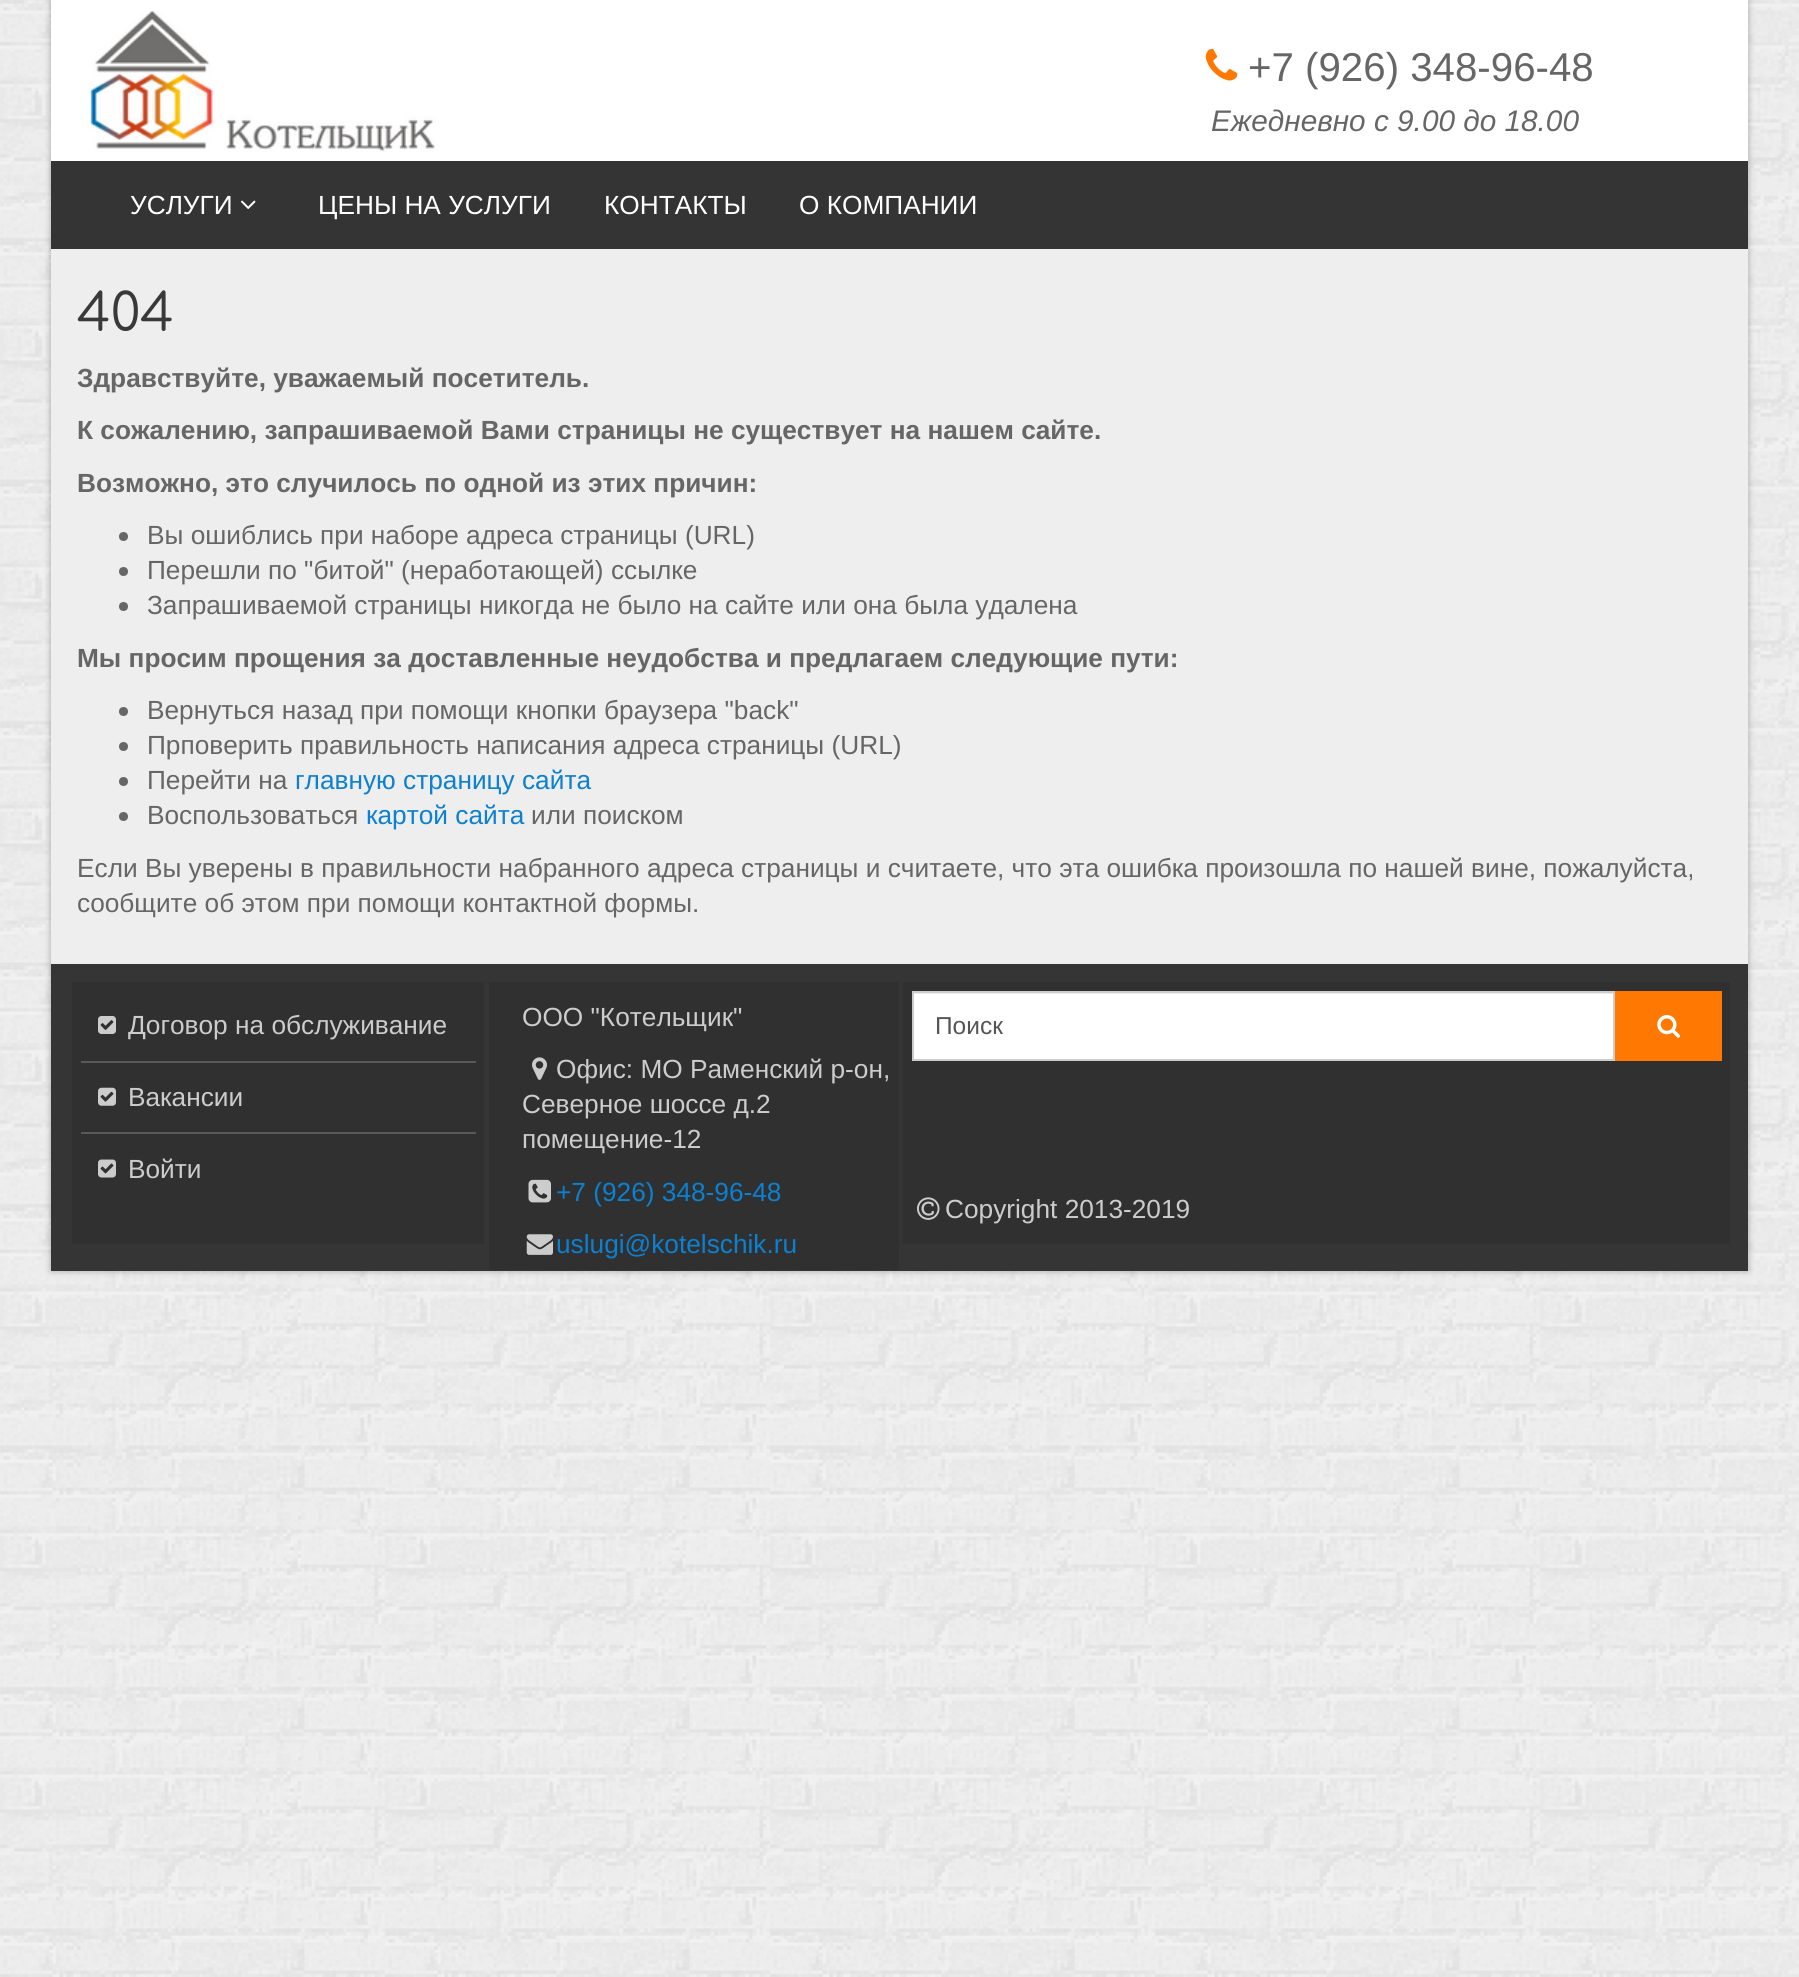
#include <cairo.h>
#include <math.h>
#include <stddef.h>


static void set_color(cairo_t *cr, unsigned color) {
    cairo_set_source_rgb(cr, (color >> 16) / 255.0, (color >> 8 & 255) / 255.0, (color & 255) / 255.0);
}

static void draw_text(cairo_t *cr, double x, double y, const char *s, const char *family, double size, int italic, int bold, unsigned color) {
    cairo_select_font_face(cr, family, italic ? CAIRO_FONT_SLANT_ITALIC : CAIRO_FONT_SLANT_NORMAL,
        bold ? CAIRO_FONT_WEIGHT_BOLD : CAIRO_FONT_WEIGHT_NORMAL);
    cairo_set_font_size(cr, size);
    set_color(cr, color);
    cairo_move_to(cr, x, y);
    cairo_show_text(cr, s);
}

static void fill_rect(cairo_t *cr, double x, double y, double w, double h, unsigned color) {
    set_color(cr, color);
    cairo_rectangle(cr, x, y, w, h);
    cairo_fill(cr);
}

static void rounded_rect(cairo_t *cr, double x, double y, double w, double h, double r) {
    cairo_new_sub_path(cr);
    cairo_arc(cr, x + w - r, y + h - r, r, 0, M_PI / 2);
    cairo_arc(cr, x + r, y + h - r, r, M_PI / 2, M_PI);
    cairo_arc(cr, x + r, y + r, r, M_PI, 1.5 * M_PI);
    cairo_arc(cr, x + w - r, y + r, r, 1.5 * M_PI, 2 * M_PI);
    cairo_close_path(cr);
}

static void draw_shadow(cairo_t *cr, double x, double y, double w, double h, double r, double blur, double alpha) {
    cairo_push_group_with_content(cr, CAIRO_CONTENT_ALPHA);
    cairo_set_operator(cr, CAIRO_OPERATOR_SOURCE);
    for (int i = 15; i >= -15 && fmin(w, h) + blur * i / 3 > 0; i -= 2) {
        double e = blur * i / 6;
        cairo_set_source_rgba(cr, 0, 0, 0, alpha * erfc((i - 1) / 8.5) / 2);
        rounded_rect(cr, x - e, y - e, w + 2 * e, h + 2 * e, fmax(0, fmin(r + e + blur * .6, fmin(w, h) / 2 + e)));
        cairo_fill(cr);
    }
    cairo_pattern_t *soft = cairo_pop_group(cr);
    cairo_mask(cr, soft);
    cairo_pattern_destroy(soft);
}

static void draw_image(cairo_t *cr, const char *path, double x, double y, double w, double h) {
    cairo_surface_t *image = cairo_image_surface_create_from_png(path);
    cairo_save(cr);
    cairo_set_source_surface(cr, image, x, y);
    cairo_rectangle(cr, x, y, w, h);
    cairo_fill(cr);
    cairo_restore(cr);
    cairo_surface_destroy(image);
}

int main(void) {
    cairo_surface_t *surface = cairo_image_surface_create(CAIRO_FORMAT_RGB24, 1799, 1977);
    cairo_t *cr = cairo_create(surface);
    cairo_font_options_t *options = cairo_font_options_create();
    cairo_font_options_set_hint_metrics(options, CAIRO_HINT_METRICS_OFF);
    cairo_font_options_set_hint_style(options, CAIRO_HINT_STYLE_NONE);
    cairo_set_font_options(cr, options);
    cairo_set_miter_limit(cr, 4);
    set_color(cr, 0xFFFFFF);
    cairo_paint(cr);
    draw_image(cr, "assets/img1.png", 0, 0, 1799, 1977);
    set_color(cr, 0x000000);
    draw_shadow(cr, 51, 0, 1697, 1271, 0, 3.5, 0.3);
    fill_rect(cr, 51, 249, 1697, 715, 0xEEEEEE);
    fill_rect(cr, 51, 0, 1697, 161, 0xFFFFFF);
    draw_image(cr, "assets/img2.png", 89, 11, 347, 141);
    draw_image(cr, "assets/img3.png", 1205, 48, 33, 33);
    draw_text(cr, 1248, 81, "+7 (926) 348-96-48", "Liberation Sans", 40.25, 0, 0, 0x666666);
    draw_text(cr, 1211, 131, "Ежедневно с 9.00 до 18.00", "Liberation Sans", 29.75, 1, 0, 0x666666);
    fill_rect(cr, 51, 161, 1697, 88, 0x343434);
    draw_text(cr, 130, 214, "УСЛУГИ", "Liberation Sans", 26.25, 0, 0, 0xFFFFFF);
    draw_image(cr, "assets/img4.png", 240, 200, 16, 9);
    draw_text(cr, 318, 214, "ЦЕНЫ НА УСЛУГИ", "Liberation Sans", 26.25, 0, 0, 0xFFFFFF);
    draw_text(cr, 604, 214, "КОНТАКТЫ", "Liberation Sans", 26.25, 0, 0, 0xFFFFFF);
    draw_text(cr, 799, 214, "О КОМПАНИИ", "Liberation Sans", 26.25, 0, 0, 0xFFFFFF);
    draw_text(cr, 77, 331, "404", "Comfortaa", 52, 0, 0, 0x393939);
    draw_text(cr, 77, 387, "Здравствуйте, уважаемый посетитель.", "Liberation Sans", 26.25, 0, 1, 0x666666);
    draw_text(cr, 77, 439, "К сожалению, запрашиваемой Вами страницы не существует на нашем сайте.", "Liberation Sans", 26.25, 0, 1, 0x666666);
    draw_text(cr, 77, 492, "Возможно, это случилось по одной из этих причин:", "Liberation Sans", 26.25, 0, 1, 0x666666);
    cairo_new_path(cr);
    cairo_arc(cr, 123.5, 536.5, 4.5, 0, 2 * M_PI);
    cairo_fill(cr);
    draw_text(cr, 147, 544, "Вы ошиблись при наборе адреса страницы (URL)", "Liberation Sans", 26.25, 0, 0, 0x666666);
    cairo_new_path(cr);
    cairo_arc(cr, 123.5, 571.5, 4.5, 0, 2 * M_PI);
    cairo_fill(cr);
    draw_text(cr, 147, 579, "Перешли по \"битой\" (неработающей) ссылке", "Liberation Sans", 26.25, 0, 0, 0x666666);
    cairo_new_path(cr);
    cairo_arc(cr, 123.5, 606.5, 4.5, 0, 2 * M_PI);
    cairo_fill(cr);
    draw_text(cr, 147, 614, "Запрашиваемой страницы никогда не было на сайте или она была удалена", "Liberation Sans", 26.25, 0, 0, 0x666666);
    draw_text(cr, 77, 667, "Мы просим прощения за доставленные неудобства и предлагаем следующие пути:", "Liberation Sans", 26.25, 0, 1, 0x666666);
    cairo_new_path(cr);
    cairo_arc(cr, 123.5, 711.5, 4.5, 0, 2 * M_PI);
    cairo_fill(cr);
    draw_text(cr, 147, 719, "Вернуться назад при помощи кнопки браузера \"back\"", "Liberation Sans", 26.25, 0, 0, 0x666666);
    cairo_new_path(cr);
    cairo_arc(cr, 123.5, 746.5, 4.5, 0, 2 * M_PI);
    cairo_fill(cr);
    draw_text(cr, 147, 754, "Прповерить правильность написания адреса страницы (URL)", "Liberation Sans", 26.25, 0, 0, 0x666666);
    cairo_new_path(cr);
    cairo_arc(cr, 123.5, 781.5, 4.5, 0, 2 * M_PI);
    cairo_fill(cr);
    draw_text(cr, 147, 789, "Перейти на", "Liberation Sans", 26.25, 0, 0, 0x666666);
    draw_text(cr, 295, 789, "главную страницу сайта", "Liberation Sans", 26.25, 0, 0, 0x0C80D1);
    set_color(cr, 0x666666);
    cairo_new_path(cr);
    cairo_arc(cr, 123.5, 816.5, 4.5, 0, 2 * M_PI);
    cairo_fill(cr);
    draw_text(cr, 147, 824, "Воспользоваться", "Liberation Sans", 26.25, 0, 0, 0x666666);
    draw_text(cr, 366, 824, "картой сайта", "Liberation Sans", 26.25, 0, 0, 0x0C80D1);
    draw_text(cr, 531, 824, "или поиском", "Liberation Sans", 26.25, 0, 0, 0x666666);
    draw_text(cr, 77, 877, "Если Вы уверены в правильности набранного адреса страницы и считаете, что эта ошибка произошла по нашей вине, пожалуйста,", "Liberation Sans", 26.25, 0, 0, 0x666666);
    draw_text(cr, 77, 912, "сообщите об этом при помощи контактной формы.", "Liberation Sans", 26.25, 0, 0, 0x666666);
    fill_rect(cr, 51, 964, 1697, 307, 0x353535);
    fill_rect(cr, 72, 982, 412, 262, 0x303030);
    draw_image(cr, "assets/img5.png", 98, 1016, 18, 18);
    draw_text(cr, 128, 1034, "Договор на обслуживание", "Liberation Sans", 26.25, 0, 0, 0xCCCCCC);
    fill_rect(cr, 81, 1061, 395, 2, 0x595959);
    draw_image(cr, "assets/img6.png", 98, 1087, 18, 19);
    draw_text(cr, 128, 1106, "Вакансии", "Liberation Sans", 26.25, 0, 0, 0xCCCCCC);
    fill_rect(cr, 81, 1132, 395, 2, 0x595959);
    draw_image(cr, "assets/img7.png", 98, 1159, 18, 19);
    draw_text(cr, 128, 1178, "Войти", "Liberation Sans", 26.25, 0, 0, 0xCCCCCC);
    fill_rect(cr, 489, 982, 410, 288, 0x303030);
    draw_text(cr, 522, 1026, "ООО \"Котельщик\"", "Liberation Sans", 26.25, 0, 0, 0xCCCCCC);
    draw_image(cr, "assets/img8.png", 532, 1057, 15, 23);
    draw_text(cr, 556, 1078, "Офис: МО Раменский р-он,", "Liberation Sans", 26.25, 0, 0, 0xCCCCCC);
    draw_text(cr, 522, 1113, "Северное шоссе д.2", "Liberation Sans", 26.25, 0, 0, 0xCCCCCC);
    draw_text(cr, 522, 1148, "помещение-12", "Liberation Sans", 26.25, 0, 0, 0xCCCCCC);
    draw_image(cr, "assets/img9.png", 528, 1179, 23, 24);
    draw_text(cr, 556, 1201, "+7 (926) 348-96-48", "Liberation Sans", 26.25, 0, 0, 0x0C80D1);
    draw_image(cr, "assets/img10.png", 526, 1234, 27, 21);
    draw_text(cr, 556, 1253, "uslugi@kotelschik.ru", "Liberation Sans", 26.25, 0, 0, 0x0C80D1);
    fill_rect(cr, 903, 982, 827, 262, 0x303030);
    fill_rect(cr, 914, 994, 699, 65, 0xFFFFFF);
    fill_rect(cr, 914, 993, 700, 1, 0xECECEC);
    cairo_rectangle(cr, 913, 992, 701, 68);
    set_color(cr, 0xCCCCCC);
    cairo_stroke(cr);
    draw_text(cr, 935, 1034, "Поиск", "Liberation Sans", 24.5, 0, 0, 0x555555);
    fill_rect(cr, 1615, 991, 107, 70, 0xFF7802);
    draw_image(cr, "assets/img11.png", 1657, 1015, 23, 23);
    draw_image(cr, "assets/img12.png", 917, 1197, 23, 23);
    draw_text(cr, 945, 1218, "Copyright 2013-2019", "Liberation Sans", 26.25, 0, 0, 0xCCCCCC);
    cairo_surface_write_to_png(surface, "output.png");
    cairo_font_options_destroy(options);
    cairo_destroy(cr);
    cairo_surface_destroy(surface);
    return 0;
}
